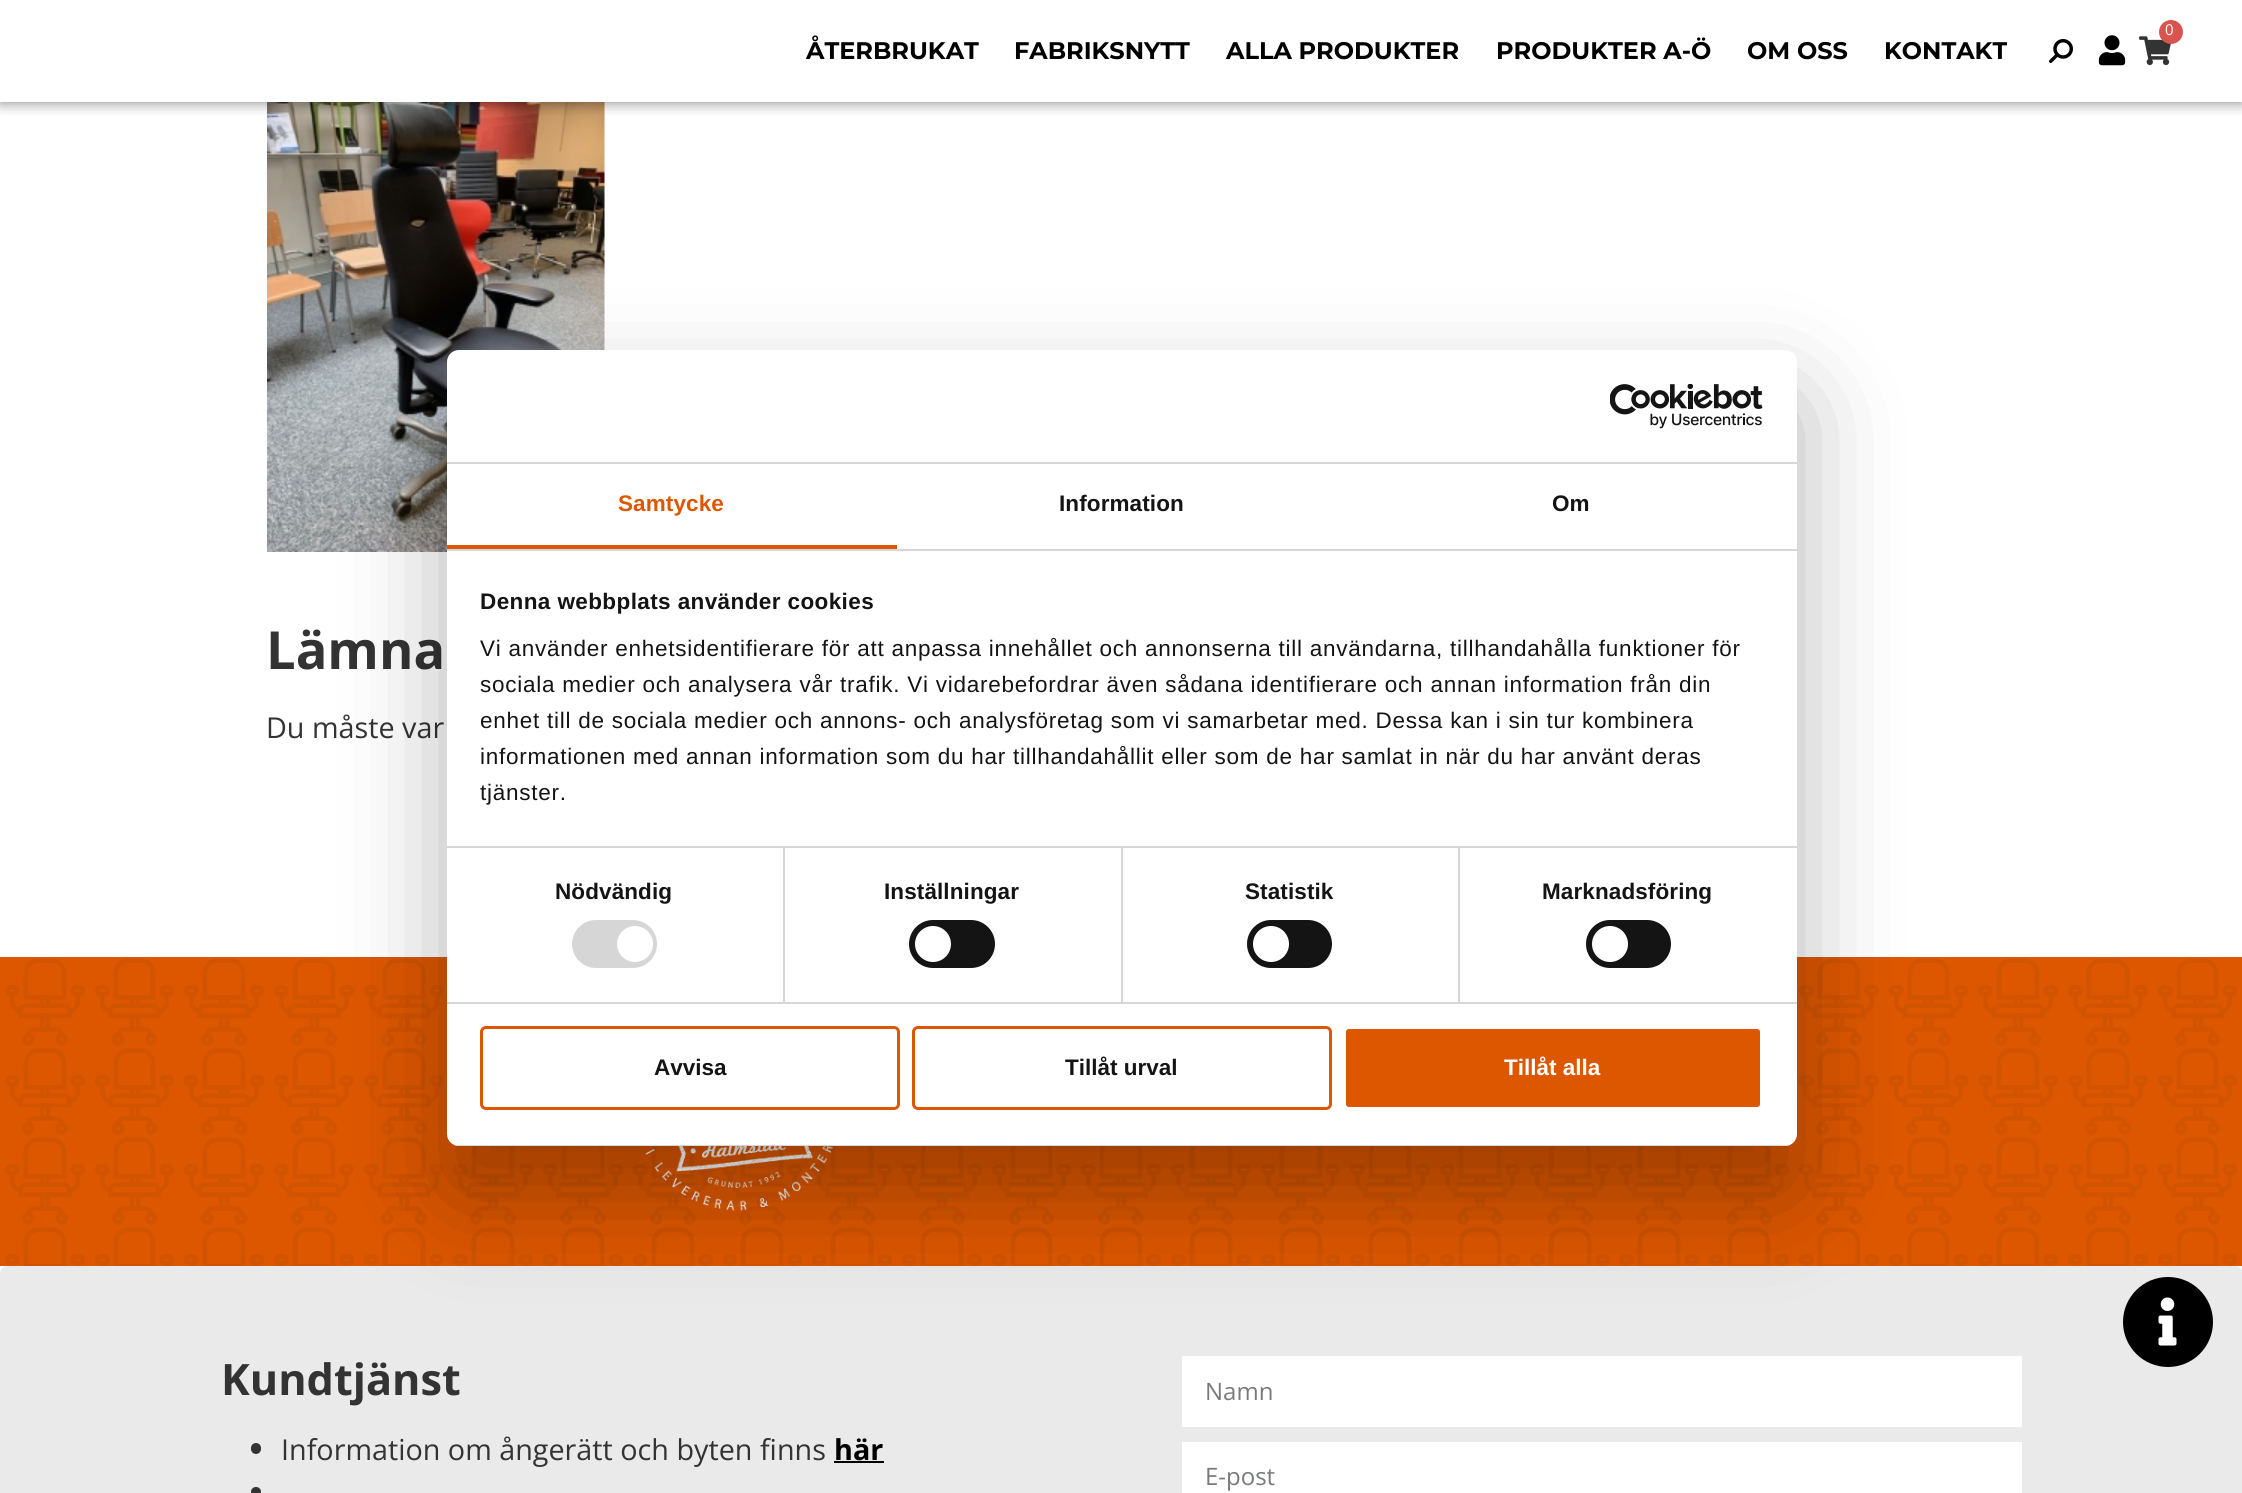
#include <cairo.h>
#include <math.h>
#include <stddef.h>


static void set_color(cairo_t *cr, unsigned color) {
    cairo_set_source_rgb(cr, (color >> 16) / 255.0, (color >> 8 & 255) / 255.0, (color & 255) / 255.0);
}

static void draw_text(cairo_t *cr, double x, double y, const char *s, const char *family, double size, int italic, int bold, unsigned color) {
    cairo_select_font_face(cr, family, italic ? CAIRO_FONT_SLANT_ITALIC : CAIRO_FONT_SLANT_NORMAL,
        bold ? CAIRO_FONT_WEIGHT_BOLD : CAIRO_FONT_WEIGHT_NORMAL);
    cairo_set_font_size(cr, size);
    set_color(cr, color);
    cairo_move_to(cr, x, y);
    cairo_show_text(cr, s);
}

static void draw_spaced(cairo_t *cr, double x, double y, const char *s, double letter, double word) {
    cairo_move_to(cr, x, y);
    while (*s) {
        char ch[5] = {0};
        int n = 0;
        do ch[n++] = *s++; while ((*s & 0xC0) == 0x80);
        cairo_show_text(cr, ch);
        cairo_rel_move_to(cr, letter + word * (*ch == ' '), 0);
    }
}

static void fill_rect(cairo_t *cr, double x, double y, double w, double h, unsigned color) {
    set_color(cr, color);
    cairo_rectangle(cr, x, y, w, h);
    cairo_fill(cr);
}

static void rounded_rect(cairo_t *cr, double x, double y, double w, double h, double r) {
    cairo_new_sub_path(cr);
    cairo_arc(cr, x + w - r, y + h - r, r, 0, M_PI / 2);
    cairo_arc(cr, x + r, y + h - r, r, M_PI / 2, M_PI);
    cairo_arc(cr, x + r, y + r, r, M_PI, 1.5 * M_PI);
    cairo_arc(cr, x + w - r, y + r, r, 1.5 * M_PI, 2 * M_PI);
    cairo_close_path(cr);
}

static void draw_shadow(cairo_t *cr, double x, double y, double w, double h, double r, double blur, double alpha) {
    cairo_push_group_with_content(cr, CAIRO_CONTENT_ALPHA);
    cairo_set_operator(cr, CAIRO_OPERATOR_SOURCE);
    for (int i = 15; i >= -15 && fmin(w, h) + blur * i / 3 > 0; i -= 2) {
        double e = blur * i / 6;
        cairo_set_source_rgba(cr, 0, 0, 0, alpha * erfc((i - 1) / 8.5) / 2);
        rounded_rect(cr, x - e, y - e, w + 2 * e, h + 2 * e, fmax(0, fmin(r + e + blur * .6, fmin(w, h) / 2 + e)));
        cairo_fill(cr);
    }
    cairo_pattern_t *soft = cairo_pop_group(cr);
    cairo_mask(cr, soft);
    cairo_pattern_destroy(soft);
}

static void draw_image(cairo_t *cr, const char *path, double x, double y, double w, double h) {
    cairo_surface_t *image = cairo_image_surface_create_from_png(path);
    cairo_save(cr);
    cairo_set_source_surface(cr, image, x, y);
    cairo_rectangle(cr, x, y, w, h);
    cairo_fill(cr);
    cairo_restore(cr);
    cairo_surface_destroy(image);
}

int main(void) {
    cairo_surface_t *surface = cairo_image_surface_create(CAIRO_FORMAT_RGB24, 2242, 1493);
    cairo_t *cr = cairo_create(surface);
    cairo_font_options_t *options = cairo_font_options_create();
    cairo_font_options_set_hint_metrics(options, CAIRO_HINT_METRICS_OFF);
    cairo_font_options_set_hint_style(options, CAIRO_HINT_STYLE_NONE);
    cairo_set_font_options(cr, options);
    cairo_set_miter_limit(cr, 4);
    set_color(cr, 0xFFFFFF);
    cairo_paint(cr);
    draw_image(cr, "assets/img4.png", 267, 102, 338, 450);
    cairo_save(cr);
    cairo_rectangle(cr, 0, 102, 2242, 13);
    cairo_clip(cr);
    set_color(cr, 0x000000);
    draw_shadow(cr, 0, 0, 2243, 102, 0, 7.5, 0.5);
    cairo_restore(cr);
    draw_image(cr, "assets/img1.png", 2139, 36, 32, 30);
    set_color(cr, 0xD9534F);
    cairo_arc(cr, 2171, 32, 12, 0, 2 * M_PI);
    cairo_fill(cr);
    draw_text(cr, 2165, 35, "0", "Open Sans", 15, 0, 0, 0xFFFFFF);
    draw_text(cr, 806, 59, "ÅTERBRUKAT", "Montserrat", 24, 0, 1, 0x000000);
    draw_text(cr, 1014, 59, "FABRIKSNYTT", "Montserrat", 24, 0, 1, 0x000000);
    draw_text(cr, 1226, 59, "ALLA PRODUKTER", "Montserrat", 24, 0, 1, 0x000000);
    draw_text(cr, 1496, 59, "PRODUKTER A-Ö", "Montserrat", 24, 0, 1, 0x000000);
    draw_text(cr, 1747, 59, "OM OSS", "Montserrat", 24, 0, 1, 0x000000);
    draw_text(cr, 1884, 59, "KONTAKT", "Montserrat", 24, 0, 1, 0x000000);
    draw_image(cr, "assets/img2.png", 2049, 39, 24, 24);
    draw_image(cr, "assets/img3.png", 2098, 35, 28, 31);
    draw_text(cr, 266, 669, "Lämna", "Open Sans", 52.5, 0, 1, 0x333333);
    draw_text(cr, 266, 738, "Du måste var", "Open Sans", 28.75, 0, 0, 0x333333);
    fill_rect(cr, 0, 957, 2242, 309, 0xDD5700);
    draw_image(cr, "assets/img7.png", 5, 958, 2232, 308);
    draw_image(cr, "assets/img8.png", 645, 1146, 189, 65);
    set_color(cr, 0xEAEAEA);
    rounded_rect(cr, 0, 1266, 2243, 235, 8);
    cairo_fill(cr);
    set_color(cr, 0x000000);
    draw_shadow(cr, 447, 398, 1350, 796, 12, 51, 0.3);
    set_color(cr, 0xFFFFFF);
    rounded_rect(cr, 447, 350, 1350, 796, 12);
    cairo_fill(cr);
    fill_rect(cr, 447, 462, 1350, 2, 0xD6D6D6);
    draw_image(cr, "assets/img5.png", 1610, 384, 153, 45);
    fill_rect(cr, 447, 549, 1350, 2, 0xD6D6D6);
    fill_rect(cr, 447, 545, 450, 4, 0xDD5700);
    cairo_select_font_face(cr, "Liberation Sans", CAIRO_FONT_SLANT_NORMAL, CAIRO_FONT_WEIGHT_BOLD);
    cairo_set_font_size(cr, 22.5);
    draw_spaced(cr, 618, 511, "Samtycke", 0.1, 0);
    set_color(cr, 0x141414);
    draw_spaced(cr, 1059, 511, "Information", 0.1, 0);
    draw_spaced(cr, 1552, 511, "Om", 0.1, 0);
    fill_rect(cr, 447, 846, 1350, 2, 0xD6D6D6);
    set_color(cr, 0x141414);
    draw_spaced(cr, 480, 609, "Denna webbplats använder cookies", 0.4, 0);
    cairo_select_font_face(cr, "Liberation Sans", CAIRO_FONT_SLANT_NORMAL, CAIRO_FONT_WEIGHT_NORMAL);
    draw_spaced(cr, 480, 656, "Vi använder enhetsidentifierare för att anpassa innehållet och annonserna till användarna, tillhandahålla funktioner för", 0.75, 0);
    draw_spaced(cr, 480, 692, "sociala medier och analysera vår trafik. Vi vidarebefordrar även sådana identifierare och annan information från din", 0.75, 0);
    draw_spaced(cr, 480, 728, "enhet till de sociala medier och annons- och analysföretag som vi samarbetar med. Dessa kan i sin tur kombinera", 0.75, 0);
    draw_spaced(cr, 480, 764, "informationen med annan information som du har tillhandahållit eller som de har samlat in när du har använt deras", 0.75, 0);
    draw_spaced(cr, 480, 800, "tjänster.", 0.75, 0);
    fill_rect(cr, 447, 1002, 1350, 2, 0xD6D6D6);
    fill_rect(cr, 783, 848, 2, 154, 0xD6D6D6);
    cairo_select_font_face(cr, "Liberation Sans", CAIRO_FONT_SLANT_NORMAL, CAIRO_FONT_WEIGHT_BOLD);
    set_color(cr, 0x141414);
    draw_spaced(cr, 555, 899, "Nödvändig", 0.1, 0);
    set_color(cr, 0xD6D6D6);
    rounded_rect(cr, 572, 920, 85, 48, 24);
    cairo_fill(cr);
    set_color(cr, 0xFFFFFF);
    cairo_arc(cr, 635, 944, 18, 0, 2 * M_PI);
    cairo_fill(cr);
    fill_rect(cr, 1121, 848, 2, 154, 0xD6D6D6);
    set_color(cr, 0x141414);
    draw_spaced(cr, 884, 899, "Inställningar", 0.1, 0);
    rounded_rect(cr, 909, 920, 86, 48, 24);
    cairo_fill(cr);
    set_color(cr, 0xFFFFFF);
    cairo_arc(cr, 933, 944, 18, 0, 2 * M_PI);
    cairo_fill(cr);
    fill_rect(cr, 1458, 848, 2, 154, 0xD6D6D6);
    set_color(cr, 0x141414);
    draw_spaced(cr, 1245, 899, "Statistik", 0.1, 0);
    rounded_rect(cr, 1247, 920, 85, 48, 24);
    cairo_fill(cr);
    set_color(cr, 0xFFFFFF);
    cairo_arc(cr, 1271, 944, 18, 0, 2 * M_PI);
    cairo_fill(cr);
    set_color(cr, 0x141414);
    draw_spaced(cr, 1542, 899, "Marknadsföring", 0.1, 0);
    rounded_rect(cr, 1586, 920, 85, 48, 24);
    cairo_fill(cr);
    set_color(cr, 0xFFFFFF);
    cairo_arc(cr, 1610, 944, 18, 0, 2 * M_PI);
    cairo_fill(cr);
    cairo_save(cr);
    rounded_rect(cr, 447, 350, 1350, 796, 12);
    cairo_clip(cr);
    fill_rect(cr, 447, 1145, 1350, 1, 0xD6D6D6);
    cairo_restore(cr);
    rounded_rect(cr, 481.5, 1027.5, 417, 81, 4.5);
    set_color(cr, 0xDD5700);
    cairo_set_line_width(cr, 3);
    cairo_stroke(cr);
    draw_text(cr, 654, 1075, "Avvisa", "Liberation Sans", 22.5, 0, 1, 0x141414);
    rounded_rect(cr, 913.5, 1027.5, 417, 81, 4.5);
    set_color(cr, 0xDD5700);
    cairo_stroke(cr);
    draw_text(cr, 1065, 1075, "Tillåt urval", "Liberation Sans", 22.5, 0, 1, 0x141414);
    set_color(cr, 0xDD5700);
    rounded_rect(cr, 1344.5, 1027.5, 417, 81, 4.5);
    cairo_fill_preserve(cr);
    set_color(cr, 0xFFFFFF);
    cairo_stroke(cr);
    draw_text(cr, 1504, 1075, "Tillåt alla", "Liberation Sans", 22.5, 0, 1, 0xFFFFFF);
    set_color(cr, 0x000000);
    cairo_new_path(cr);
    cairo_arc(cr, 2168, 1322, 45, 0, 2 * M_PI);
    cairo_fill(cr);
    draw_image(cr, "assets/img6.png", 2158, 1297, 19, 49);
    draw_text(cr, 221, 1395, "Kundtjänst", "Open Sans", 43.25, 0, 1, 0x333333);
    rounded_rect(cr, 251, 1443, 10, 11, 5);
    cairo_fill(cr);
    draw_text(cr, 281, 1460, "Information om ångerätt och byten finns", "Open Sans", 28.75, 0, 0, 0x333333);
    draw_text(cr, 834, 1460, "här", "Open Sans", 28.75, 0, 1, 0x000000);
    fill_rect(cr, 834, 1461, 50, 2, 0x000000);
    set_color(cr, 0x333333);
    cairo_new_path(cr);
    cairo_arc(cr, 256, 1492, 5, 0, 2 * M_PI);
    cairo_fill(cr);
    fill_rect(cr, 1182, 1356, 840, 71, 0xFFFFFF);
    draw_text(cr, 1205, 1400, "Namn", "Open Sans", 24, 0, 0, 0x797A7C);
    fill_rect(cr, 1182, 1442, 840, 51, 0xFFFFFF);
    draw_text(cr, 1205, 1485, "E-post", "Open Sans", 24, 0, 0, 0x797A7C);
    cairo_surface_write_to_png(surface, "output.png");
    cairo_font_options_destroy(options);
    cairo_destroy(cr);
    cairo_surface_destroy(surface);
    return 0;
}
